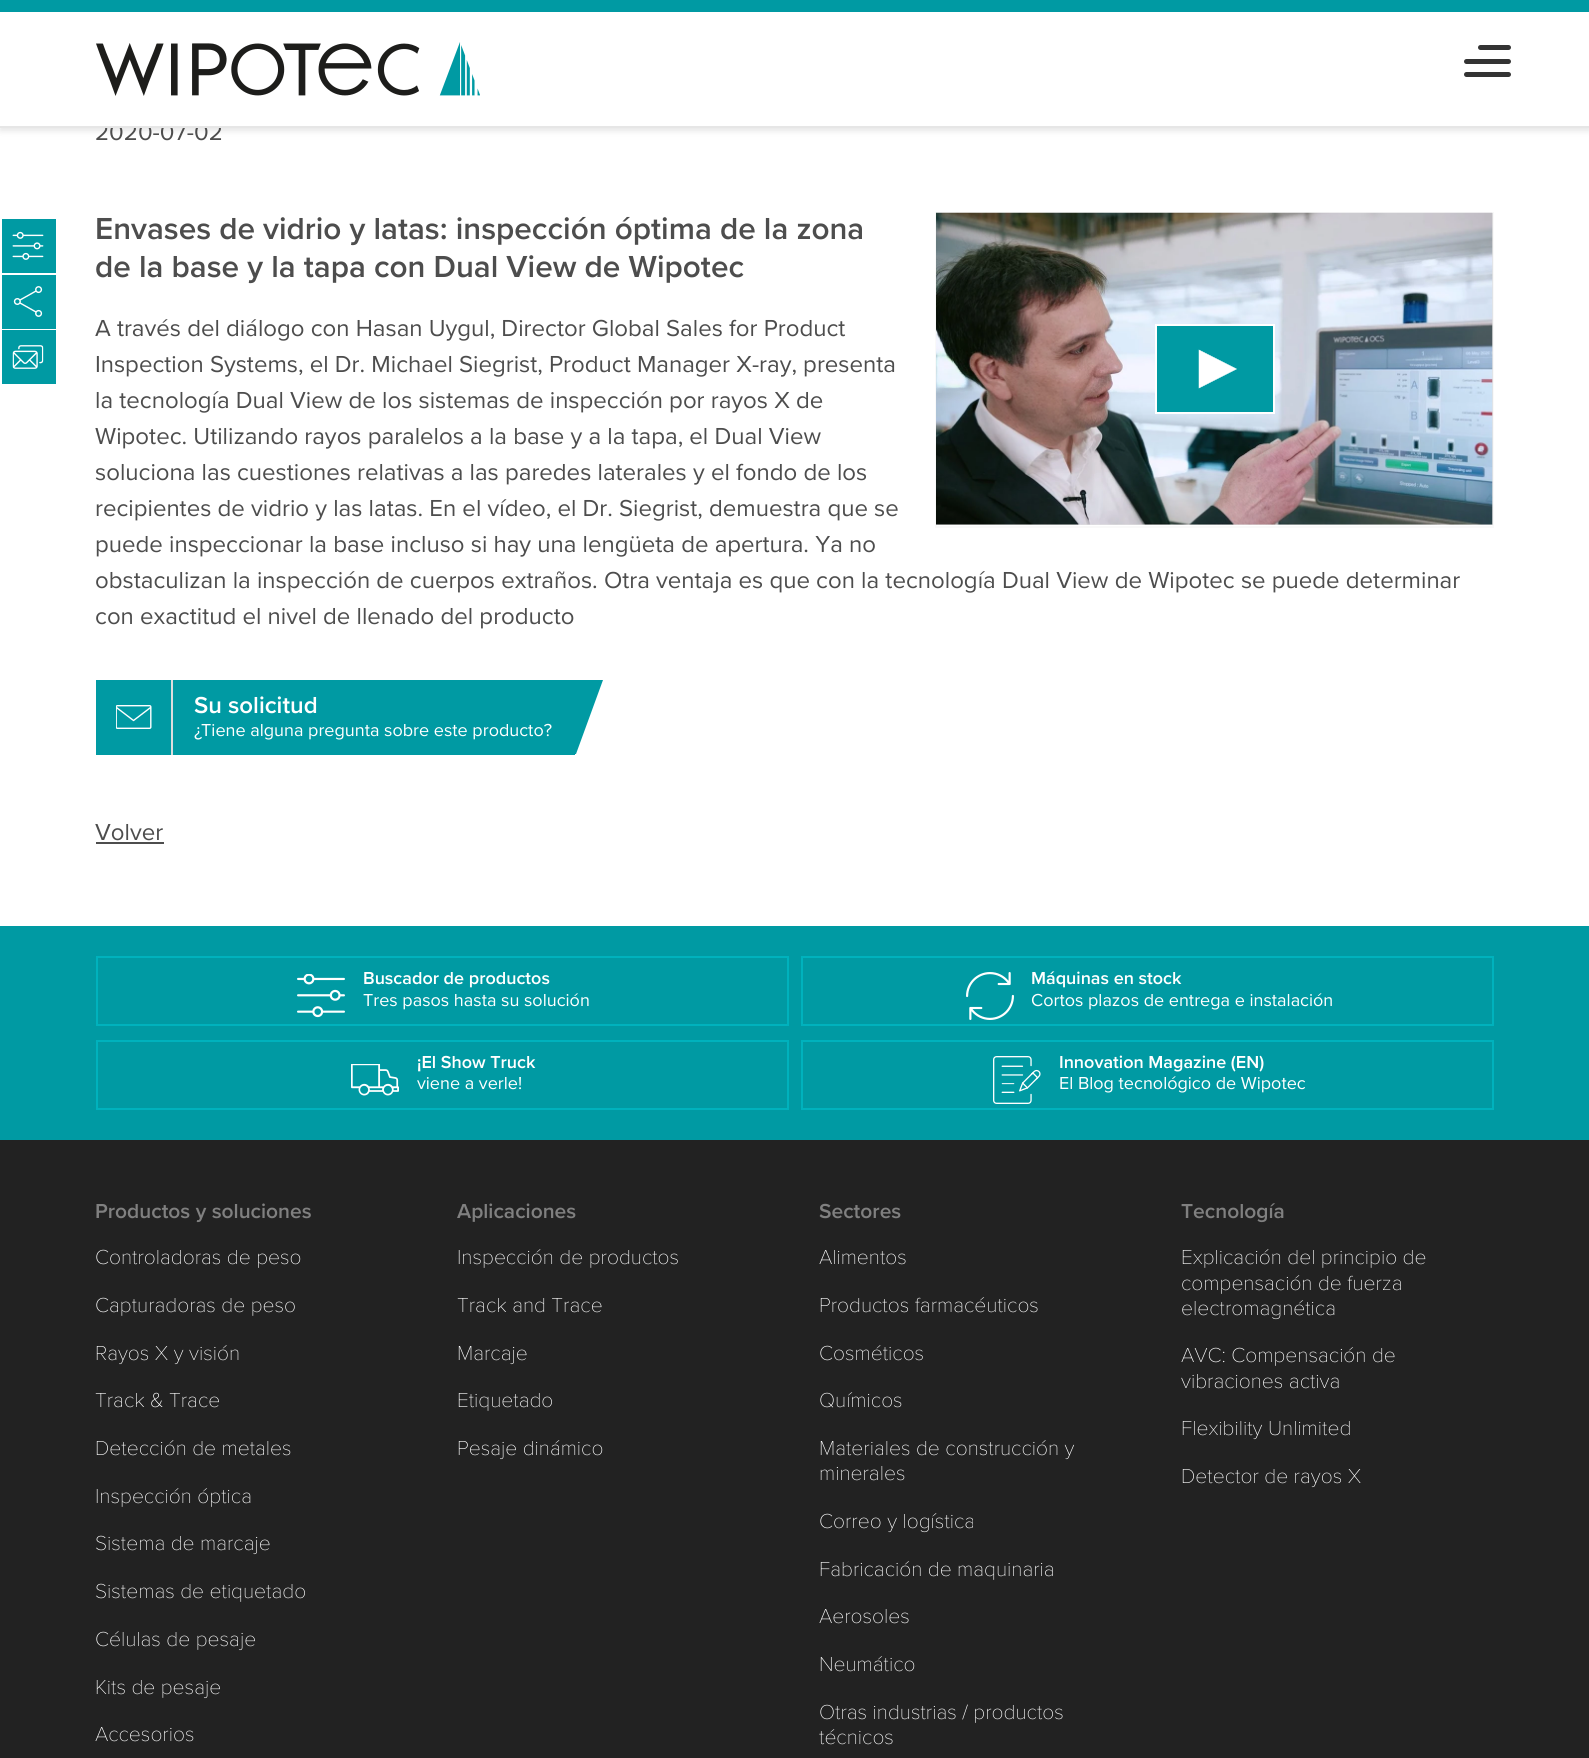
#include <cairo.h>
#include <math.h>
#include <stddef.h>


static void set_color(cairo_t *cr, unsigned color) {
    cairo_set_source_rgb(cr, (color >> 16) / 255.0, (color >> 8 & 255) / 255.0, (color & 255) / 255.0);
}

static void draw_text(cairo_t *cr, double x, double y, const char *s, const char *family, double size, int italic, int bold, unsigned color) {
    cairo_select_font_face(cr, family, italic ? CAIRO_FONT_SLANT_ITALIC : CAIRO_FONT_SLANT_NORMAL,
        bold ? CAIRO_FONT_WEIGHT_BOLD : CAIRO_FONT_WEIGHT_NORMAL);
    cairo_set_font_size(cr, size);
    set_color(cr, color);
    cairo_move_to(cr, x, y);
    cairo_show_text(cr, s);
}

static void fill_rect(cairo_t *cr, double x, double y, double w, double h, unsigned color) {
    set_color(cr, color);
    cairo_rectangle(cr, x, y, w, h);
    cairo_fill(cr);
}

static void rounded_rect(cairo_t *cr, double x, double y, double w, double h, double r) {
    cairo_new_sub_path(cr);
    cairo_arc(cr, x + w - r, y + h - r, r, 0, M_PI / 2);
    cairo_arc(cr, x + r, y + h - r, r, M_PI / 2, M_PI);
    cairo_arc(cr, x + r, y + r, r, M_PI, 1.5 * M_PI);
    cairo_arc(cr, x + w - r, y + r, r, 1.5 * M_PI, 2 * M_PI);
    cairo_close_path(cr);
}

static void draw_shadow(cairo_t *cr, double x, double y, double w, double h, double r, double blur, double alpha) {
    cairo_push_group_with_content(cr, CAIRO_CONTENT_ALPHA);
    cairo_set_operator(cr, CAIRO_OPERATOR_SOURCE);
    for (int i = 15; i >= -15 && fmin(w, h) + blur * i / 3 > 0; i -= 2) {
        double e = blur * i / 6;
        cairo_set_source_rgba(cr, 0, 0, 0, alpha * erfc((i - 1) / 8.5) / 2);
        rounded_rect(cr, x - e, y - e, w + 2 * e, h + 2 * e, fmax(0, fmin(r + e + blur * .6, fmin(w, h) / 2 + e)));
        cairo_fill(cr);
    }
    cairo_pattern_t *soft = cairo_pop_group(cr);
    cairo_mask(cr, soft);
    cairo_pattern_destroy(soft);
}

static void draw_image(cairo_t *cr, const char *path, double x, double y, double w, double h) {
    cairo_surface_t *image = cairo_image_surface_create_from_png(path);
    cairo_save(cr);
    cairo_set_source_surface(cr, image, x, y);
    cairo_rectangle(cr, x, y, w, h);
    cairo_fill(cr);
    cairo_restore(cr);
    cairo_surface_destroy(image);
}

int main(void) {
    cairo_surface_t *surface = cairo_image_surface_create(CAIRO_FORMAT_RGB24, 1589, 1758);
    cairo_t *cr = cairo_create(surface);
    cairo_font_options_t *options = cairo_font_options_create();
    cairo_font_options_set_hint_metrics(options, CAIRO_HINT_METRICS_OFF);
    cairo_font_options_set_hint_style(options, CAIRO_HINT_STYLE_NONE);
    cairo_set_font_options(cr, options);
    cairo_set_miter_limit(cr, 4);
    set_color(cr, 0x222222);
    cairo_paint(cr);
    fill_rect(cr, 0, 128, 1589, 798, 0xFFFFFF);
    set_color(cr, 0x000000);
    draw_shadow(cr, 0, 3, 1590, 128, 0, 3, 0.1);
    draw_text(cr, 95, 140, "2020-07-02", "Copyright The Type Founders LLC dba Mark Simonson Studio", 24, 0, 0, 0x4D4D4D);
    fill_rect(cr, 0, 12, 1589, 114, 0xFFFFFF);
    fill_rect(cr, 0, 0, 1589, 12, 0x009AA3);
    fill_rect(cr, 0, 126, 1589, 2, 0xE6E6E6);
    draw_image(cr, "assets/img1.png", 96, 42, 384, 54);
    set_color(cr, 0x333333);
    rounded_rect(cr, 1478, 45, 33, 5, 2.5);
    cairo_fill(cr);
    rounded_rect(cr, 1464, 59, 47, 5, 2.5);
    cairo_fill(cr);
    rounded_rect(cr, 1464, 72, 47, 5, 2.5);
    cairo_fill(cr);
    fill_rect(cr, 2, 219, 54, 54, 0x009AA3);
    draw_image(cr, "assets/img2.png", 12, 231, 32, 29);
    fill_rect(cr, 2, 275, 54, 54, 0x009AA3);
    draw_image(cr, "assets/img3.png", 13, 286, 30, 31);
    fill_rect(cr, 2, 330, 54, 54, 0x009AA3);
    draw_image(cr, "assets/img4.png", 12, 345, 32, 24);
    cairo_rectangle(cr, 936, 213, 557, 314);
    set_color(cr, 0xF9F9F9);
    cairo_stroke(cr);
    fill_rect(cr, 936, 213, 557, 312, 0xE3E3E3);
    draw_image(cr, "assets/img5.png", 936, 212, 557, 313);
    fill_rect(cr, 1157, 326, 116, 86, 0x009AA3);
    set_color(cr, 0xFFFFFF);
    cairo_new_path(cr);
    cairo_move_to(cr, 1273, 326);
    cairo_line_to(cr, 1273, 412);
    cairo_line_to(cr, 1157, 412);
    cairo_line_to(cr, 1157, 326);
    cairo_line_to(cr, 1273, 326);
    cairo_move_to(cr, 1275, 324);
    cairo_line_to(cr, 1155, 324);
    cairo_line_to(cr, 1155, 414);
    cairo_line_to(cr, 1275, 414);
    cairo_close_path(cr);
    cairo_fill(cr);
    cairo_new_path(cr);
    cairo_move_to(cr, 1236.5, 369);
    cairo_line_to(cr, 1199, 350);
    cairo_line_to(cr, 1199, 388);
    cairo_close_path(cr);
    cairo_fill_preserve(cr);
    cairo_set_line_width(cr, 0.5);
    cairo_stroke(cr);
    draw_text(cr, 95, 239, "Envases de vidrio y latas: inspección óptima de la zona", "Copyright The Type Founders LLC dba Mark Simonson Studio SemiBold", 31.5, 0, 0, 0x4D4D4D);
    draw_text(cr, 95, 277, "de la base y la tapa con Dual View de Wipotec", "Copyright The Type Founders LLC dba Mark Simonson Studio SemiBold", 31.5, 0, 0, 0x4D4D4D);
    draw_text(cr, 95, 336, "A través del diálogo con Hasan Uygul, Director Global Sales for Product", "Copyright The Type Founders LLC dba Mark Simonson Studio", 24, 0, 0, 0x4D4D4D);
    draw_text(cr, 95, 372, "Inspection Systems, el Dr. Michael Siegrist, Product Manager X-ray, presenta", "Copyright The Type Founders LLC dba Mark Simonson Studio", 24, 0, 0, 0x4D4D4D);
    draw_text(cr, 95, 408, "la tecnología Dual View de los sistemas de inspección por rayos X de", "Copyright The Type Founders LLC dba Mark Simonson Studio", 24, 0, 0, 0x4D4D4D);
    draw_text(cr, 95, 444, "Wipotec. Utilizando rayos paralelos a la base y a la tapa, el Dual View", "Copyright The Type Founders LLC dba Mark Simonson Studio", 24, 0, 0, 0x4D4D4D);
    draw_text(cr, 95, 480, "soluciona las cuestiones relativas a las paredes laterales y el fondo de los", "Copyright The Type Founders LLC dba Mark Simonson Studio", 24, 0, 0, 0x4D4D4D);
    draw_text(cr, 95, 516, "recipientes de vidrio y las latas. En el vídeo, el Dr. Siegrist, demuestra que se", "Copyright The Type Founders LLC dba Mark Simonson Studio", 24, 0, 0, 0x4D4D4D);
    draw_text(cr, 95, 552, "puede inspeccionar la base incluso si hay una lengüeta de apertura. Ya no", "Copyright The Type Founders LLC dba Mark Simonson Studio", 24, 0, 0, 0x4D4D4D);
    draw_text(cr, 95, 588, "obstaculizan la inspección de cuerpos extraños. Otra ventaja es que con la tecnología Dual View de Wipotec se puede determinar", "Copyright The Type Founders LLC dba Mark Simonson Studio", 24, 0, 0, 0x4D4D4D);
    draw_text(cr, 95, 624, "con exactitud el nivel de llenado del producto", "Copyright The Type Founders LLC dba Mark Simonson Studio", 24, 0, 0, 0x4D4D4D);
    fill_rect(cr, 96, 680, 75, 75, 0x009AA3);
    draw_image(cr, "assets/img6.png", 116, 705, 36, 24);
    fill_rect(cr, 173, 680, 402, 75, 0x009AA3);
    fill_rect(cr, 171, 680, 2, 75, 0xDDDDDD);
    draw_text(cr, 194, 713, "Su solicitud", "Copyright The Type Founders LLC dba Mark Simonson Studio SemiBold", 24, 0, 0, 0xFFFFFF);
    draw_text(cr, 194, 736, "¿Tiene alguna pregunta sobre este producto?", "Copyright The Type Founders LLC dba Mark Simonson Studio", 18, 0, 0, 0xFFFFFF);
    set_color(cr, 0x009AA3);
    cairo_new_path(cr);
    cairo_move_to(cr, 573, 680);
    cairo_line_to(cr, 603, 680);
    cairo_line_to(cr, 576, 754);
    cairo_line_to(cr, 573, 754);
    cairo_close_path(cr);
    cairo_fill(cr);
    draw_text(cr, 95, 840, "Volver", "Copyright The Type Founders LLC dba Mark Simonson Studio", 24, 0, 0, 0x4D4D4D);
    fill_rect(cr, 96, 842, 68, 2, 0x4D4D4D);
    fill_rect(cr, 0, 926, 1589, 214, 0x009AA3);
    cairo_rectangle(cr, 97, 957, 691, 68);
    set_color(cr, 0x00B2BD);
    cairo_set_line_width(cr, 2);
    cairo_stroke(cr);
    draw_image(cr, "assets/img7.png", 297, 974, 48, 44);
    draw_text(cr, 363, 984, "Buscador de productos", "Copyright The Type Founders LLC dba Mark Simonson Studio SemiBold", 18, 0, 0, 0xFFFFFF);
    draw_text(cr, 363, 1006, "Tres pasos hasta su solución", "Copyright The Type Founders LLC dba Mark Simonson Studio", 18, 0, 0, 0xFFFFFF);
    cairo_rectangle(cr, 802, 957, 691, 68);
    set_color(cr, 0x00B2BD);
    cairo_stroke(cr);
    draw_image(cr, "assets/img8.png", 966, 972, 48, 48);
    draw_text(cr, 1031, 984, "Máquinas en stock", "Copyright The Type Founders LLC dba Mark Simonson Studio SemiBold", 18, 0, 0, 0xFFFFFF);
    draw_text(cr, 1031, 1006, "Cortos plazos de entrega e instalación", "Copyright The Type Founders LLC dba Mark Simonson Studio", 18, 0, 0, 0xFFFFFF);
    cairo_rectangle(cr, 97, 1041, 691, 68);
    set_color(cr, 0x00B2BD);
    cairo_stroke(cr);
    draw_image(cr, "assets/img9.png", 351, 1064, 48, 32);
    draw_text(cr, 417, 1068, "¡El Show Truck", "Copyright The Type Founders LLC dba Mark Simonson Studio SemiBold", 18, 0, 0, 0xFFFFFF);
    draw_text(cr, 417, 1089, "viene a verle!", "Copyright The Type Founders LLC dba Mark Simonson Studio", 18, 0, 0, 0xFFFFFF);
    cairo_rectangle(cr, 802, 1041, 691, 68);
    set_color(cr, 0x00B2BD);
    cairo_stroke(cr);
    draw_image(cr, "assets/img10.png", 993, 1056, 48, 48);
    draw_text(cr, 1059, 1068, "Innovation Magazine (EN)", "Copyright The Type Founders LLC dba Mark Simonson Studio SemiBold", 18, 0, 0, 0xFFFFFF);
    draw_text(cr, 1059, 1089, "El Blog tecnológico de Wipotec", "Copyright The Type Founders LLC dba Mark Simonson Studio", 18, 0, 0, 0xFFFFFF);
    draw_text(cr, 95, 1218, "Productos y soluciones", "Copyright The Type Founders LLC dba Mark Simonson Studio SemiBold", 21, 0, 0, 0x808080);
    draw_text(cr, 95, 1264, "Controladoras de peso", "Copyright The Type Founders LLC dba Mark Simonson Studio Thin", 21, 0, 0, 0xFFFFFF);
    draw_text(cr, 95, 1312, "Capturadoras de peso", "Copyright The Type Founders LLC dba Mark Simonson Studio Thin", 21, 0, 0, 0xFFFFFF);
    draw_text(cr, 95, 1360, "Rayos X y visión", "Copyright The Type Founders LLC dba Mark Simonson Studio Thin", 21, 0, 0, 0xFFFFFF);
    draw_text(cr, 95, 1407, "Track & Trace", "Copyright The Type Founders LLC dba Mark Simonson Studio Thin", 21, 0, 0, 0xFFFFFF);
    draw_text(cr, 95, 1455, "Detección de metales", "Copyright The Type Founders LLC dba Mark Simonson Studio Thin", 21, 0, 0, 0xFFFFFF);
    draw_text(cr, 95, 1503, "Inspección óptica", "Copyright The Type Founders LLC dba Mark Simonson Studio Thin", 21, 0, 0, 0xFFFFFF);
    draw_text(cr, 95, 1550, "Sistema de marcaje", "Copyright The Type Founders LLC dba Mark Simonson Studio Thin", 21, 0, 0, 0xFFFFFF);
    draw_text(cr, 95, 1598, "Sistemas de etiquetado", "Copyright The Type Founders LLC dba Mark Simonson Studio Thin", 21, 0, 0, 0xFFFFFF);
    draw_text(cr, 95, 1646, "Células de pesaje", "Copyright The Type Founders LLC dba Mark Simonson Studio Thin", 21, 0, 0, 0xFFFFFF);
    draw_text(cr, 95, 1694, "Kits de pesaje", "Copyright The Type Founders LLC dba Mark Simonson Studio Thin", 21, 0, 0, 0xFFFFFF);
    draw_text(cr, 95, 1741, "Accesorios", "Copyright The Type Founders LLC dba Mark Simonson Studio Thin", 21, 0, 0, 0xFFFFFF);
    draw_text(cr, 457, 1218, "Aplicaciones", "Copyright The Type Founders LLC dba Mark Simonson Studio SemiBold", 21, 0, 0, 0x808080);
    draw_text(cr, 457, 1264, "Inspección de productos", "Copyright The Type Founders LLC dba Mark Simonson Studio Thin", 21, 0, 0, 0xFFFFFF);
    draw_text(cr, 457, 1312, "Track and Trace", "Copyright The Type Founders LLC dba Mark Simonson Studio Thin", 21, 0, 0, 0xFFFFFF);
    draw_text(cr, 457, 1360, "Marcaje", "Copyright The Type Founders LLC dba Mark Simonson Studio Thin", 21, 0, 0, 0xFFFFFF);
    draw_text(cr, 457, 1407, "Etiquetado", "Copyright The Type Founders LLC dba Mark Simonson Studio Thin", 21, 0, 0, 0xFFFFFF);
    draw_text(cr, 457, 1455, "Pesaje dinámico", "Copyright The Type Founders LLC dba Mark Simonson Studio Thin", 21, 0, 0, 0xFFFFFF);
    draw_text(cr, 819, 1218, "Sectores", "Copyright The Type Founders LLC dba Mark Simonson Studio SemiBold", 21, 0, 0, 0x808080);
    draw_text(cr, 819, 1264, "Alimentos", "Copyright The Type Founders LLC dba Mark Simonson Studio Thin", 21, 0, 0, 0xFFFFFF);
    draw_text(cr, 819, 1312, "Productos farmacéuticos", "Copyright The Type Founders LLC dba Mark Simonson Studio Thin", 21, 0, 0, 0xFFFFFF);
    draw_text(cr, 819, 1360, "Cosméticos", "Copyright The Type Founders LLC dba Mark Simonson Studio Thin", 21, 0, 0, 0xFFFFFF);
    draw_text(cr, 819, 1407, "Químicos", "Copyright The Type Founders LLC dba Mark Simonson Studio Thin", 21, 0, 0, 0xFFFFFF);
    draw_text(cr, 819, 1455, "Materiales de construcción y", "Copyright The Type Founders LLC dba Mark Simonson Studio Thin", 21, 0, 0, 0xFFFFFF);
    draw_text(cr, 819, 1480, "minerales", "Copyright The Type Founders LLC dba Mark Simonson Studio Thin", 21, 0, 0, 0xFFFFFF);
    draw_text(cr, 819, 1528, "Correo y logística", "Copyright The Type Founders LLC dba Mark Simonson Studio Thin", 21, 0, 0, 0xFFFFFF);
    draw_text(cr, 819, 1576, "Fabricación de maquinaria", "Copyright The Type Founders LLC dba Mark Simonson Studio Thin", 21, 0, 0, 0xFFFFFF);
    draw_text(cr, 819, 1623, "Aerosoles", "Copyright The Type Founders LLC dba Mark Simonson Studio Thin", 21, 0, 0, 0xFFFFFF);
    draw_text(cr, 819, 1671, "Neumático", "Copyright The Type Founders LLC dba Mark Simonson Studio Thin", 21, 0, 0, 0xFFFFFF);
    draw_text(cr, 819, 1719, "Otras industrias / productos", "Copyright The Type Founders LLC dba Mark Simonson Studio Thin", 21, 0, 0, 0xFFFFFF);
    draw_text(cr, 819, 1744, "técnicos", "Copyright The Type Founders LLC dba Mark Simonson Studio Thin", 21, 0, 0, 0xFFFFFF);
    draw_text(cr, 1181, 1218, "Tecnología", "Copyright The Type Founders LLC dba Mark Simonson Studio SemiBold", 21, 0, 0, 0x808080);
    draw_text(cr, 1181, 1264, "Explicación del principio de", "Copyright The Type Founders LLC dba Mark Simonson Studio Thin", 21, 0, 0, 0xFFFFFF);
    draw_text(cr, 1181, 1290, "compensación de fuerza", "Copyright The Type Founders LLC dba Mark Simonson Studio Thin", 21, 0, 0, 0xFFFFFF);
    draw_text(cr, 1181, 1315, "electromagnética", "Copyright The Type Founders LLC dba Mark Simonson Studio Thin", 21, 0, 0, 0xFFFFFF);
    draw_text(cr, 1181, 1362, "AVC: Compensación de", "Copyright The Type Founders LLC dba Mark Simonson Studio Thin", 21, 0, 0, 0xFFFFFF);
    draw_text(cr, 1181, 1388, "vibraciones activa", "Copyright The Type Founders LLC dba Mark Simonson Studio Thin", 21, 0, 0, 0xFFFFFF);
    draw_text(cr, 1181, 1435, "Flexibility Unlimited", "Copyright The Type Founders LLC dba Mark Simonson Studio Thin", 21, 0, 0, 0xFFFFFF);
    draw_text(cr, 1181, 1483, "Detector de rayos X", "Copyright The Type Founders LLC dba Mark Simonson Studio Thin", 21, 0, 0, 0xFFFFFF);
    cairo_surface_write_to_png(surface, "output.png");
    cairo_font_options_destroy(options);
    cairo_destroy(cr);
    cairo_surface_destroy(surface);
    return 0;
}
